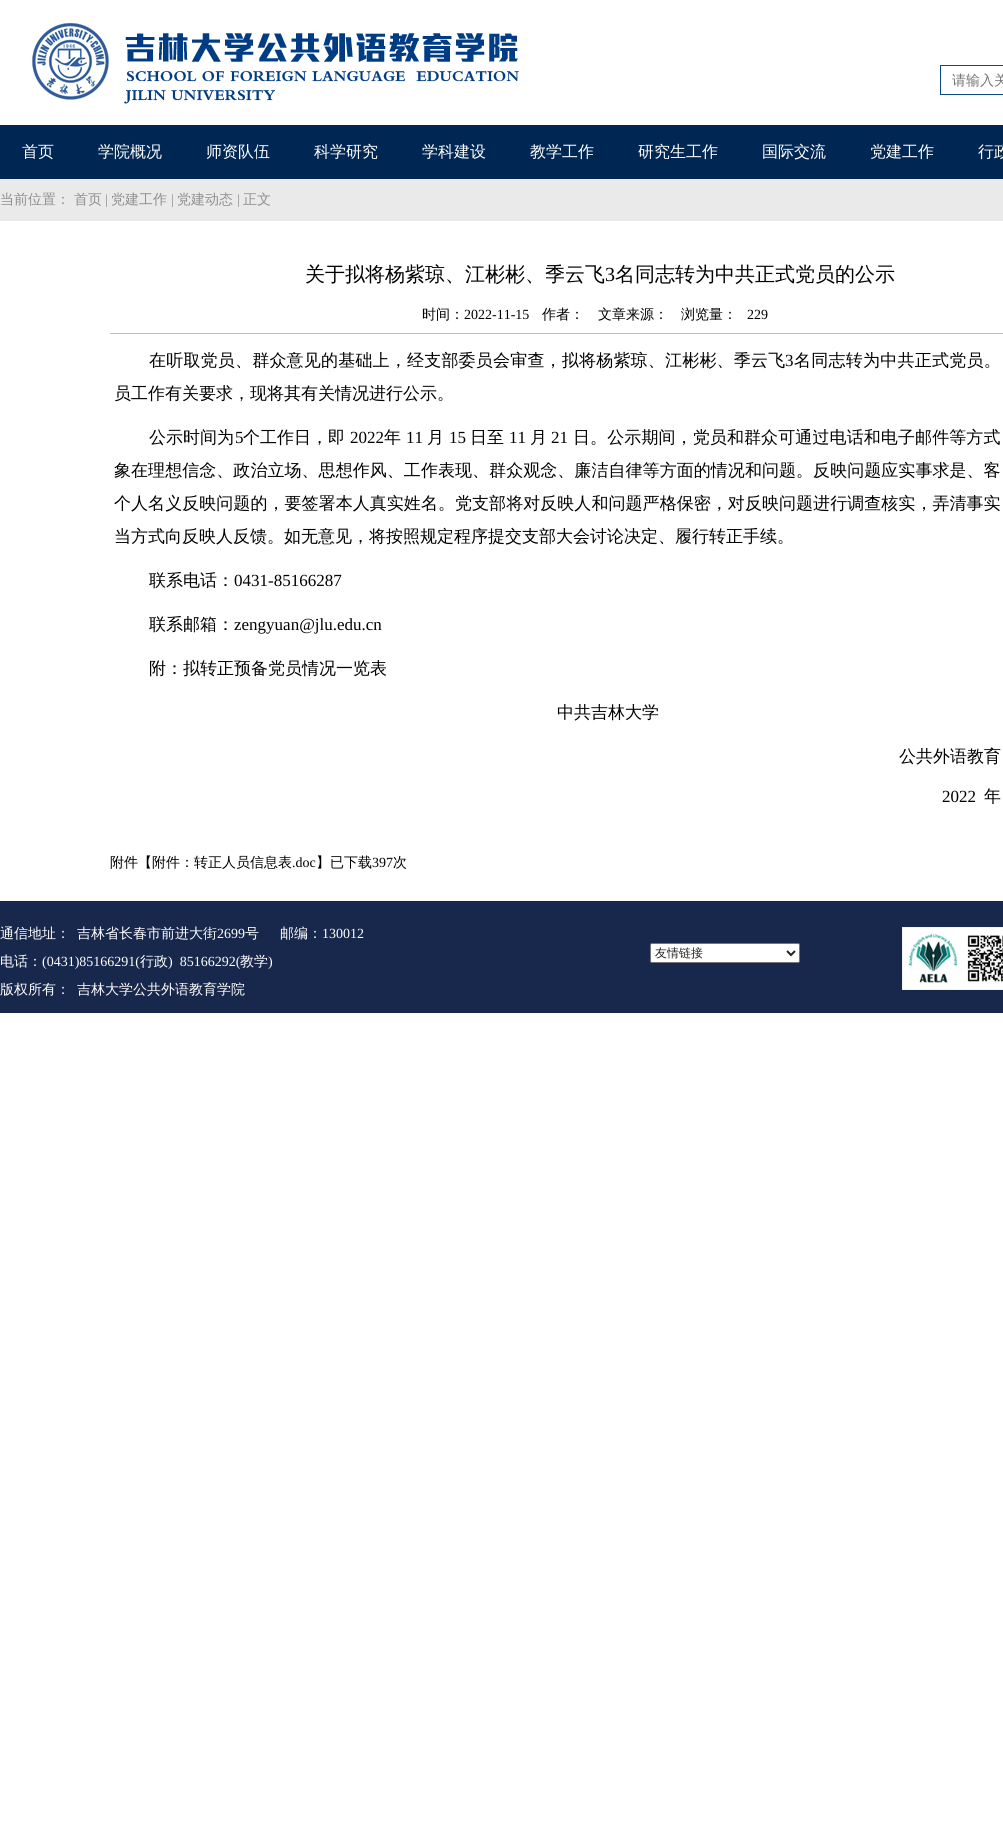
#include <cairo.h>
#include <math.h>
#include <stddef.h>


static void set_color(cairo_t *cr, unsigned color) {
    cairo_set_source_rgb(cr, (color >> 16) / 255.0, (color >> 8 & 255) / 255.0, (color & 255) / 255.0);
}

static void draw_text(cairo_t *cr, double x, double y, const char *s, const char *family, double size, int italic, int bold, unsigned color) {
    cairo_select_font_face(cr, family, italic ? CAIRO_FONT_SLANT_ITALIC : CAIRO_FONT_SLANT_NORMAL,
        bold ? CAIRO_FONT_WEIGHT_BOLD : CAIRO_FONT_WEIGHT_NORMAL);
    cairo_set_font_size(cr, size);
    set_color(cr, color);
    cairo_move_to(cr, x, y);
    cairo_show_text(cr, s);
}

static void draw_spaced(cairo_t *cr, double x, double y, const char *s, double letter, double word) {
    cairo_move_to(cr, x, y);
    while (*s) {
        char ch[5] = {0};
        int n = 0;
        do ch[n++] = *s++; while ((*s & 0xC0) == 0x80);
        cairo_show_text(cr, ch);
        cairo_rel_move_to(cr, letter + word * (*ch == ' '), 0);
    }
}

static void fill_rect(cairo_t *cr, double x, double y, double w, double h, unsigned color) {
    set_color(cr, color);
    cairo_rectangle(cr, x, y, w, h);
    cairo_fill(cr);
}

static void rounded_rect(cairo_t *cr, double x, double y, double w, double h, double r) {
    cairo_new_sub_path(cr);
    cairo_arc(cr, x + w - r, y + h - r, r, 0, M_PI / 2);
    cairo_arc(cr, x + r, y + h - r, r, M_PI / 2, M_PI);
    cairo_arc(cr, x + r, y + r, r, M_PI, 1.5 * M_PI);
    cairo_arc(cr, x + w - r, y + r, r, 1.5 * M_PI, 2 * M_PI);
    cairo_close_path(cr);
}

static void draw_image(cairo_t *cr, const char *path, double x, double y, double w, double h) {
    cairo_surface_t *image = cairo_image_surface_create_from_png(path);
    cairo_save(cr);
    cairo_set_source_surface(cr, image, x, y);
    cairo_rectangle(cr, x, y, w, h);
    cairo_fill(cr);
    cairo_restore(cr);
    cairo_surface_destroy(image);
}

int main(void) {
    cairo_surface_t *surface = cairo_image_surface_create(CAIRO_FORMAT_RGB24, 1003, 1827);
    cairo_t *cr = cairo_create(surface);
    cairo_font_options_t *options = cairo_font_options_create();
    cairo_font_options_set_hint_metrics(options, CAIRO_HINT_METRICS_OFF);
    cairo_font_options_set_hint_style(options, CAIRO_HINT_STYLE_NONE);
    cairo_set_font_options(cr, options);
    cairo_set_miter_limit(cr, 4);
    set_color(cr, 0xFFFFFF);
    cairo_paint(cr);
    draw_image(cr, "assets/img1.png", 32, 22, 487, 82);
    cairo_rectangle(cr, 940.5, 65.5, 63, 29);
    set_color(cr, 0x084985);
    cairo_set_line_width(cr, 1);
    cairo_stroke(cr);
    draw_text(cr, 952, 85, "请输入关", "WenQuanYi Zen Hei Medium", 14, 0, 0, 0x757575);
    fill_rect(cr, 0, 125, 1003, 54, 0x002753);
    draw_text(cr, 22, 157, "首页", "WenQuanYi Zen Hei Medium", 16, 0, 0, 0xFFFFFF);
    draw_text(cr, 98, 157, "学院概况", "WenQuanYi Zen Hei Medium", 16, 0, 0, 0xFFFFFF);
    draw_text(cr, 206, 157, "师资队伍", "WenQuanYi Zen Hei Medium", 16, 0, 0, 0xFFFFFF);
    draw_text(cr, 314, 157, "科学研究", "WenQuanYi Zen Hei Medium", 16, 0, 0, 0xFFFFFF);
    draw_text(cr, 422, 157, "学科建设", "WenQuanYi Zen Hei Medium", 16, 0, 0, 0xFFFFFF);
    draw_text(cr, 530, 157, "教学工作", "WenQuanYi Zen Hei Medium", 16, 0, 0, 0xFFFFFF);
    draw_text(cr, 638, 157, "研究生工作", "WenQuanYi Zen Hei Medium", 16, 0, 0, 0xFFFFFF);
    draw_text(cr, 762, 157, "国际交流", "WenQuanYi Zen Hei Medium", 16, 0, 0, 0xFFFFFF);
    draw_text(cr, 870, 157, "党建工作", "WenQuanYi Zen Hei Medium", 16, 0, 0, 0xFFFFFF);
    draw_text(cr, 978, 157, "行政", "WenQuanYi Zen Hei Medium", 16, 0, 0, 0xFFFFFF);
    fill_rect(cr, 0, 179, 1003, 42, 0xEAEAEA);
    draw_text(cr, 0, 204, "当前位置：", "WenQuanYi Zen Hei Medium", 14, 0, 0, 0x8E8E8E);
    draw_text(cr, 74, 204, "首页", "WenQuanYi Zen Hei Medium", 14, 0, 0, 0x8E8E8E);
    draw_text(cr, 105, 204, "|", "Liberation Serif", 14, 0, 0, 0x8E8E8E);
    draw_text(cr, 111, 204, "党建工作", "WenQuanYi Zen Hei Medium", 14, 0, 0, 0x8E8E8E);
    draw_text(cr, 171, 204, "|", "Liberation Serif", 14, 0, 0, 0x8E8E8E);
    draw_text(cr, 177, 204, "党建动态", "WenQuanYi Zen Hei Medium", 14, 0, 0, 0x8E8E8E);
    draw_text(cr, 237, 204, "|", "Liberation Serif", 14, 0, 0, 0x8E8E8E);
    draw_text(cr, 243, 204, "正文", "WenQuanYi Zen Hei Medium", 14, 0, 0, 0x8E8E8E);
    draw_text(cr, 305, 281, "关于拟将杨紫琼、江彬彬、季云飞", "WenQuanYi Zen Hei Medium", 20, 0, 0, 0x000000);
    draw_text(cr, 605, 281, "3", "Liberation Serif", 20, 0, 0, 0x000000);
    draw_text(cr, 615, 281, "名同志转为中共正式党员的公示", "WenQuanYi Zen Hei Medium", 20, 0, 0, 0x000000);
    fill_rect(cr, 110, 333, 893, 1, 0xBCBCBC);
    draw_text(cr, 422, 319, "时间：", "WenQuanYi Zen Hei Medium", 14, 0, 0, 0x000000);
    draw_text(cr, 464, 319, "2022-11-15", "Liberation Serif", 14, 0, 0, 0x000000);
    draw_text(cr, 542, 319, "作者：", "WenQuanYi Zen Hei Medium", 14, 0, 0, 0x000000);
    draw_text(cr, 598, 319, "文章来源：", "WenQuanYi Zen Hei Medium", 14, 0, 0, 0x000000);
    draw_text(cr, 681, 319, "浏览量：", "WenQuanYi Zen Hei Medium", 14, 0, 0, 0x000000);
    draw_text(cr, 747, 319, "229", "Liberation Serif", 14, 0, 0, 0x000000);
    cairo_select_font_face(cr, "WenQuanYi Zen Hei Medium", CAIRO_FONT_SLANT_NORMAL, CAIRO_FONT_WEIGHT_NORMAL);
    cairo_set_font_size(cr, 17);
    draw_spaced(cr, 149, 366, "在听取党员、群众意见的基础上，经支部委员会审查，拟将杨紫琼、江彬彬、季云飞", 0.2, 0);
    cairo_select_font_face(cr, "Liberation Serif", CAIRO_FONT_SLANT_NORMAL, CAIRO_FONT_WEIGHT_NORMAL);
    draw_spaced(cr, 785, 366, "3", 0.25, 0);
    cairo_select_font_face(cr, "WenQuanYi Zen Hei Medium", CAIRO_FONT_SLANT_NORMAL, CAIRO_FONT_WEIGHT_NORMAL);
    draw_spaced(cr, 794, 366, "名同志转为中共正式党员。", 0.25, 0);
    draw_text(cr, 114, 399, "员工作有关要求，现将其有关情况进行公示。", "WenQuanYi Zen Hei Medium", 17, 0, 0, 0x000000);
    draw_text(cr, 149, 443, "公示时间为", "WenQuanYi Zen Hei Medium", 17, 0, 0, 0x000000);
    draw_text(cr, 235, 443, "5", "Liberation Serif", 17, 0, 0, 0x000000);
    draw_text(cr, 243, 443, "个工作日，即", "WenQuanYi Zen Hei Medium", 17, 0, 0, 0x000000);
    draw_text(cr, 350, 443, "2022", "Liberation Serif", 17, 0, 0, 0x000000);
    draw_text(cr, 384, 443, "年", "WenQuanYi Zen Hei Medium", 17, 0, 0, 0x000000);
    draw_text(cr, 406, 443, "11", "Liberation Serif", 17, 0, 0, 0x000000);
    draw_text(cr, 427, 443, "月", "WenQuanYi Zen Hei Medium", 17, 0, 0, 0x000000);
    draw_text(cr, 449, 443, "15", "Liberation Serif", 17, 0, 0, 0x000000);
    draw_text(cr, 470, 443, "日至", "WenQuanYi Zen Hei Medium", 17, 0, 0, 0x000000);
    draw_text(cr, 509, 443, "11", "Liberation Serif", 17, 0, 0, 0x000000);
    draw_text(cr, 530, 443, "月", "WenQuanYi Zen Hei Medium", 17, 0, 0, 0x000000);
    draw_text(cr, 551, 443, "21", "Liberation Serif", 17, 0, 0, 0x000000);
    cairo_select_font_face(cr, "WenQuanYi Zen Hei Medium", CAIRO_FONT_SLANT_NORMAL, CAIRO_FONT_WEIGHT_NORMAL);
    draw_spaced(cr, 573, 443, "日。公示期间，党员和群众可通过电话和电子邮件等方式", 0.1, 0);
    draw_spaced(cr, 114, 476, "象在理想信念、政治立场、思想作风、工作表现、群众观念、廉洁自律等方面的情况和问题。反映问题应实事求是、客", 0.05, 0);
    draw_spaced(cr, 114, 509, "个人名义反映问题的，要签署本人真实姓名。党支部将对反映人和问题严格保密，对反映问题进行调查核实，弄清事实", 0.05, 0);
    draw_text(cr, 114, 542, "当方式向反映人反馈。如无意见，将按照规定程序提交支部大会讨论决定、履行转正手续。", "WenQuanYi Zen Hei Medium", 17, 0, 0, 0x000000);
    draw_text(cr, 149, 586, "联系电话：", "WenQuanYi Zen Hei Medium", 17, 0, 0, 0x000000);
    draw_text(cr, 234, 586, "0431-85166287", "Liberation Serif", 17, 0, 0, 0x000000);
    draw_text(cr, 149, 630, "联系邮箱：", "WenQuanYi Zen Hei Medium", 17, 0, 0, 0x000000);
    draw_text(cr, 234, 630, "zengyuan@jlu.edu.cn", "Liberation Serif", 17, 0, 0, 0x000000);
    draw_text(cr, 149, 674, "附：拟转正预备党员情况一览表", "WenQuanYi Zen Hei Medium", 17, 0, 0, 0x000000);
    draw_text(cr, 557, 718, "中共吉林大学", "WenQuanYi Zen Hei Medium", 17, 0, 0, 0x000000);
    draw_text(cr, 899, 762, "公共外语教育", "WenQuanYi Zen Hei Medium", 17, 0, 0, 0x000000);
    draw_text(cr, 942, 802, "2022", "Liberation Serif", 17, 0, 0, 0x000000);
    draw_text(cr, 984, 802, "年", "WenQuanYi Zen Hei Medium", 17, 0, 0, 0x000000);
    draw_text(cr, 110, 867, "附件【附件：转正人员信息表", "WenQuanYi Zen Hei Medium", 14, 0, 0, 0x000000);
    draw_text(cr, 292, 867, ".doc", "Liberation Serif", 14, 0, 0, 0x000000);
    draw_text(cr, 316, 867, "】已下载", "WenQuanYi Zen Hei Medium", 14, 0, 0, 0x000000);
    draw_text(cr, 372, 867, "397", "Liberation Serif", 14, 0, 0, 0x000000);
    draw_text(cr, 393, 867, "次", "WenQuanYi Zen Hei Medium", 14, 0, 0, 0x000000);
    fill_rect(cr, 0, 901, 1003, 112, 0x18284C);
    draw_text(cr, 0, 938, "通信地址：", "WenQuanYi Zen Hei Medium", 14, 0, 0, 0xFFFFFF);
    draw_text(cr, 77, 938, "吉林省长春市前进大街", "WenQuanYi Zen Hei Medium", 14, 0, 0, 0xFFFFFF);
    draw_text(cr, 217, 938, "2699", "Liberation Serif", 14, 0, 0, 0xFFFFFF);
    draw_text(cr, 245, 938, "号", "WenQuanYi Zen Hei Medium", 14, 0, 0, 0xFFFFFF);
    draw_text(cr, 280, 938, "邮编：", "WenQuanYi Zen Hei Medium", 14, 0, 0, 0xFFFFFF);
    draw_text(cr, 322, 938, "130012", "Liberation Serif", 14, 0, 0, 0xFFFFFF);
    rounded_rect(cr, 650.5, 943.5, 149, 19, 1.5);
    cairo_fill_preserve(cr);
    set_color(cr, 0x767676);
    cairo_stroke(cr);
    cairo_new_path(cr);
    cairo_move_to(cr, 787, 951);
    cairo_line_to(cr, 791, 955);
    cairo_line_to(cr, 795, 951);
    set_color(cr, 0x222222);
    cairo_set_line_width(cr, 2);
    cairo_stroke(cr);
    draw_text(cr, 655, 957, "友情链接", "WenQuanYi Zen Hei Medium", 12, 0, 0, 0x222222);
    draw_image(cr, "assets/img2.png", 902, 927, 101, 63);
    draw_text(cr, 0, 966, "电话：", "WenQuanYi Zen Hei Medium", 14, 0, 0, 0xFFFFFF);
    draw_text(cr, 42, 966, "(0431)85166291(", "Liberation Serif", 14, 0, 0, 0xFFFFFF);
    draw_text(cr, 140, 966, "行政", "WenQuanYi Zen Hei Medium", 14, 0, 0, 0xFFFFFF);
    draw_text(cr, 168, 966, ")  85166292(", "Liberation Serif", 14, 0, 0, 0xFFFFFF);
    draw_text(cr, 240, 966, "教学", "WenQuanYi Zen Hei Medium", 14, 0, 0, 0xFFFFFF);
    draw_text(cr, 268, 966, ")", "Liberation Serif", 14, 0, 0, 0xFFFFFF);
    draw_text(cr, 0, 994, "版权所有：", "WenQuanYi Zen Hei Medium", 14, 0, 0, 0xFFFFFF);
    draw_text(cr, 77, 994, "吉林大学公共外语教育学院", "WenQuanYi Zen Hei Medium", 14, 0, 0, 0xFFFFFF);
    cairo_surface_write_to_png(surface, "output.png");
    cairo_font_options_destroy(options);
    cairo_destroy(cr);
    cairo_surface_destroy(surface);
    return 0;
}
